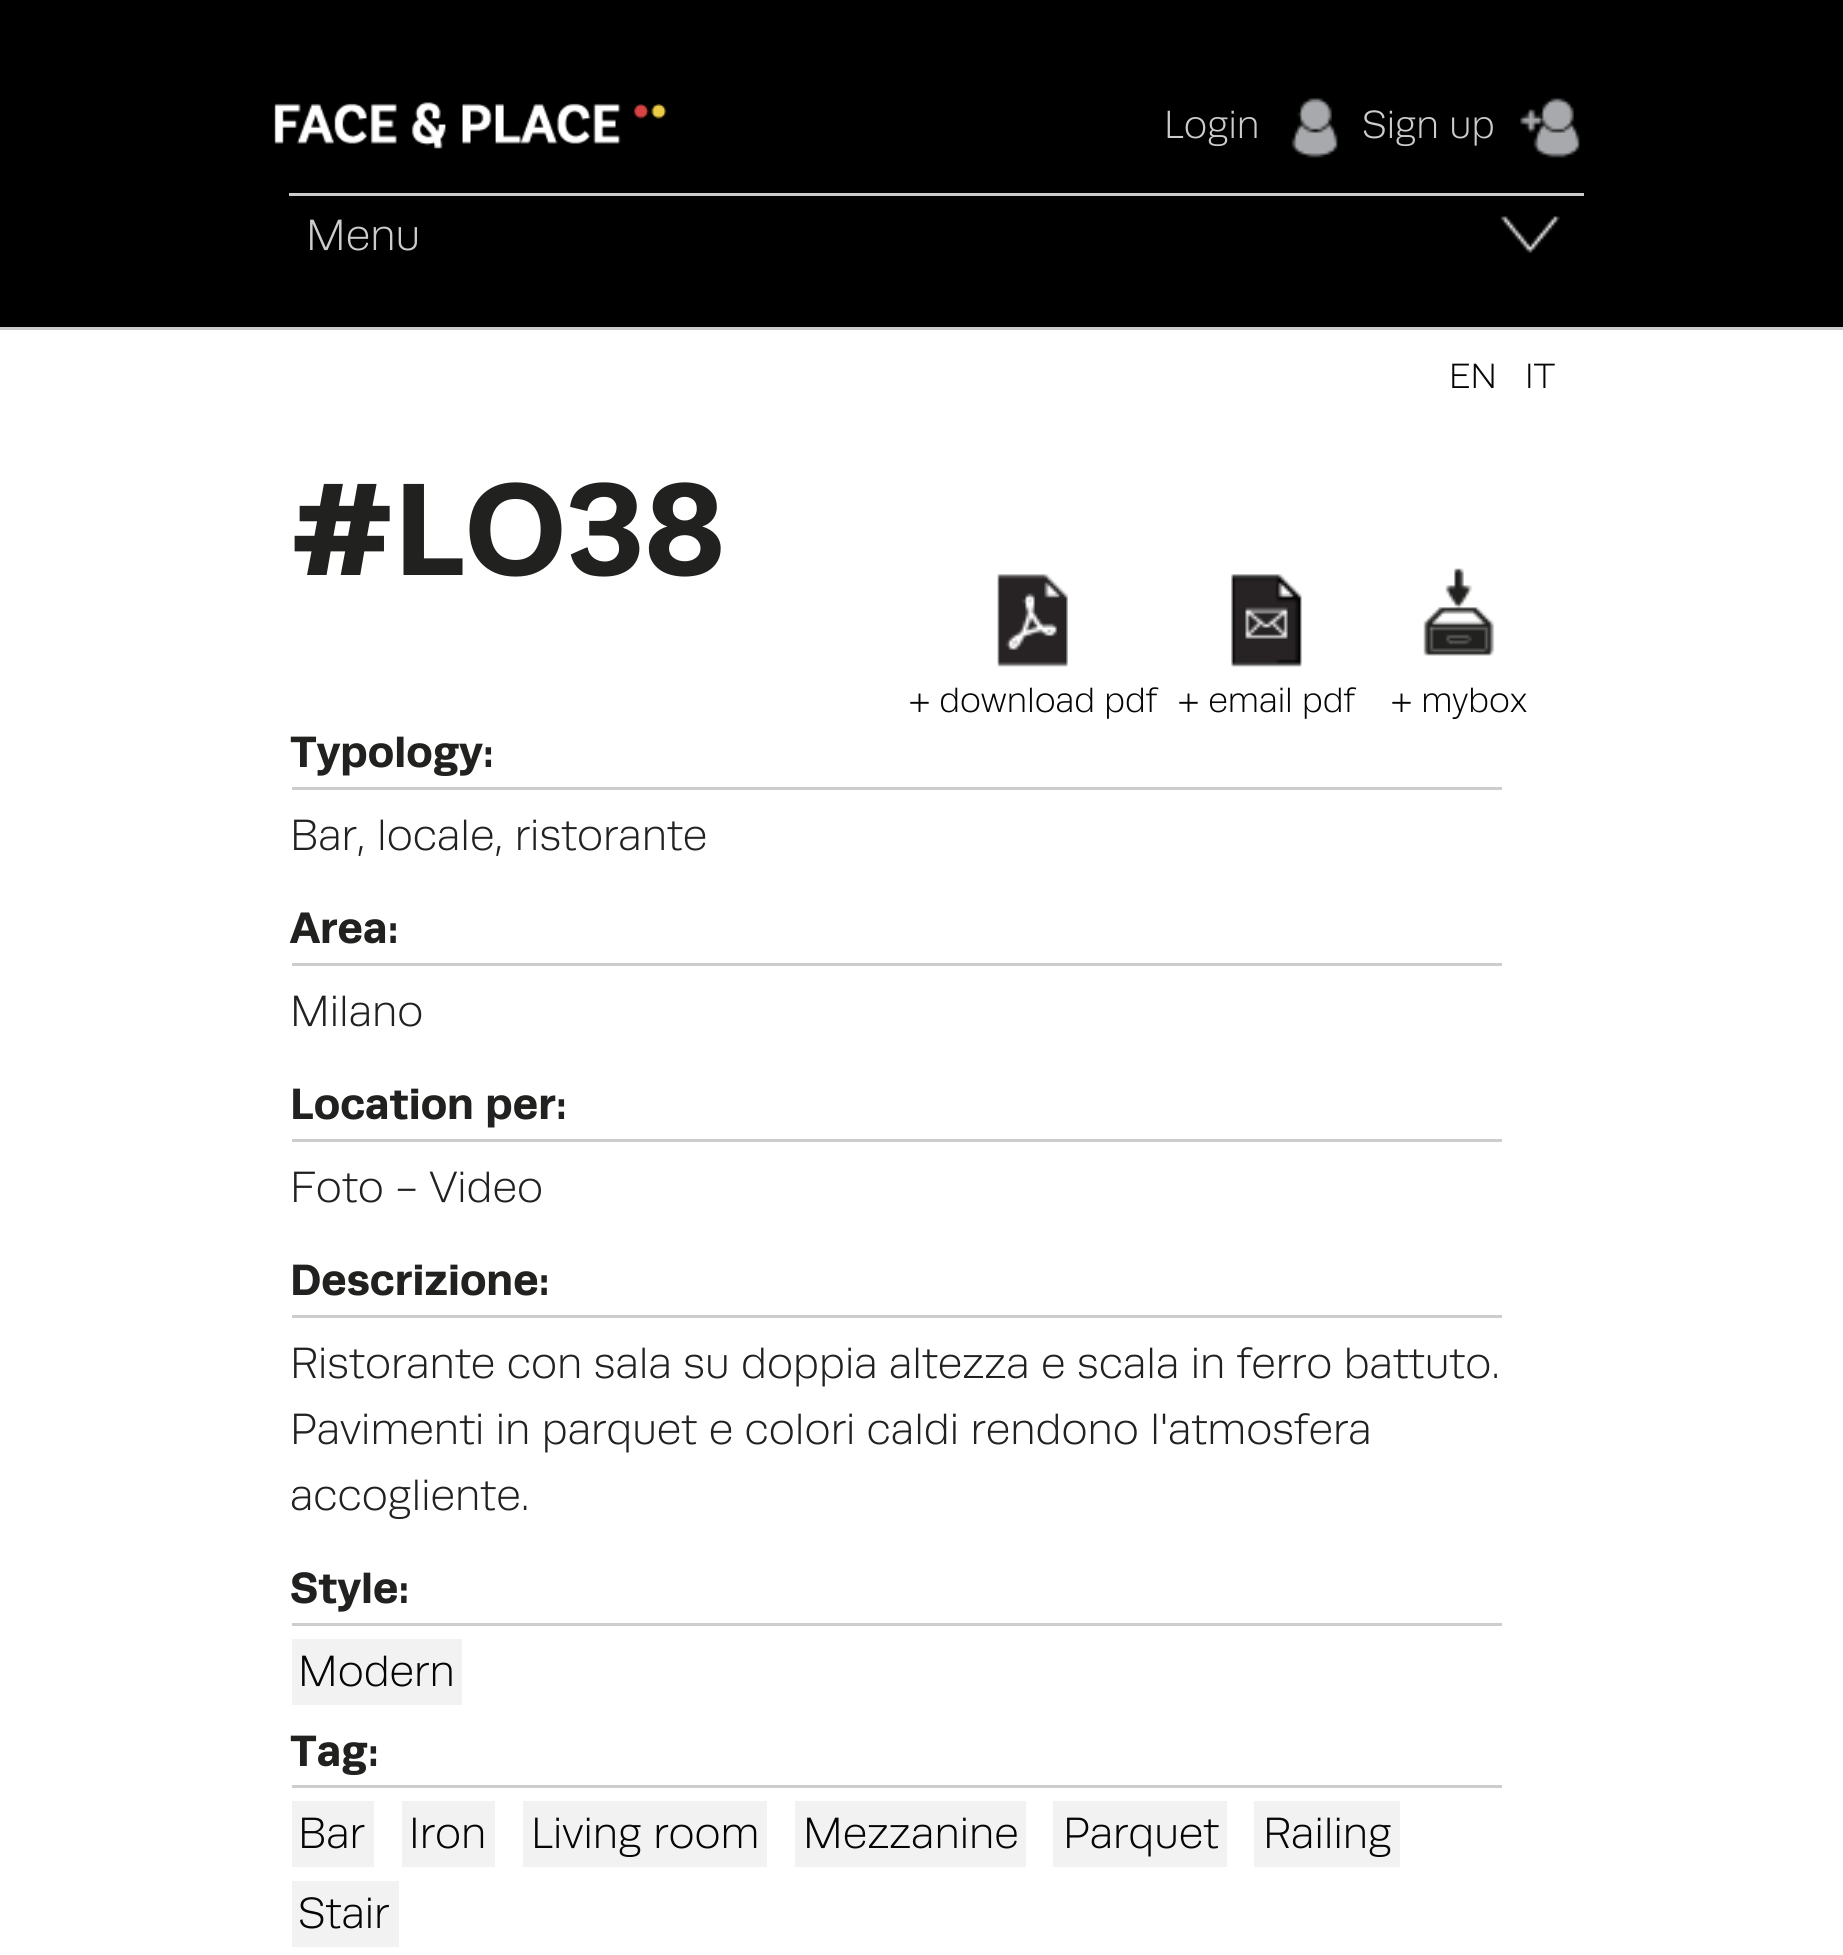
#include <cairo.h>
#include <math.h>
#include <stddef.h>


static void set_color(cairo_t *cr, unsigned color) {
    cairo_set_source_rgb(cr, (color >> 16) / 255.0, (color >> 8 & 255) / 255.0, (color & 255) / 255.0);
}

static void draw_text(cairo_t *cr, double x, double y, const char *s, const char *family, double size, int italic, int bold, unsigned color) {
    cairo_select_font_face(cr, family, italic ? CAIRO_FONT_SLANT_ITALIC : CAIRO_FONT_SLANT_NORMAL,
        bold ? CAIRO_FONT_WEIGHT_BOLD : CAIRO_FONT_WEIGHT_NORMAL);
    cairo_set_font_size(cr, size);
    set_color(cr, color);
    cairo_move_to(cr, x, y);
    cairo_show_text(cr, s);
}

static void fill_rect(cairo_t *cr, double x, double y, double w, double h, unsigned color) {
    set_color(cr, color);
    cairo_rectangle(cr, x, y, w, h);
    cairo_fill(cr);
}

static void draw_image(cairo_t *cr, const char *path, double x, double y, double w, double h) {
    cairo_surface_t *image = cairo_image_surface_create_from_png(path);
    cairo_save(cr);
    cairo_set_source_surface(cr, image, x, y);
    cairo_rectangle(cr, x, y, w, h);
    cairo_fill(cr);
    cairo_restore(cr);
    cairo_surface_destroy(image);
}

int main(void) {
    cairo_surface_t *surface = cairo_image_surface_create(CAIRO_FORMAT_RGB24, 1843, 1955);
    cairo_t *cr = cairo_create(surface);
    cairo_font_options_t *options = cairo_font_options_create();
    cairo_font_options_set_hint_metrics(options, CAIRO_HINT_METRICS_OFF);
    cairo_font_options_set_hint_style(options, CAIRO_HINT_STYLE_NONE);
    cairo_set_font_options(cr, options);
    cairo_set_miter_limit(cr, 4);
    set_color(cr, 0xFFFFFF);
    cairo_paint(cr);
    fill_rect(cr, 0, 0, 1843, 327, 0x000000);
    fill_rect(cr, 0, 327, 1843, 3, 0xCCCCCC);
    draw_image(cr, "assets/img1.png", 274, 102, 393, 47);
    draw_image(cr, "assets/img2.png", 1291, 98, 47, 60);
    draw_text(cr, 1164, 138, "Login", "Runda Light", 39.5, 0, 0, 0xCCCCCC);
    draw_image(cr, "assets/img3.png", 1520, 98, 60, 60);
    draw_text(cr, 1362, 138, "Sign up", "Runda Light", 39.5, 0, 0, 0xCCCCCC);
    draw_image(cr, "assets/img4.png", 1500, 216, 60, 37);
    fill_rect(cr, 289, 193, 1295, 3, 0xCCCCCC);
    draw_text(cr, 306, 250, "Menu", "Runda Light", 44, 0, 0, 0xCCCCCC);
    draw_text(cr, 1449, 388, "EN", "Runda Light", 35.25, 0, 0, 0x050505);
    draw_text(cr, 1525, 388, "IT", "Runda Light", 35.25, 0, 0, 0x050505);
    draw_text(cr, 290, 575, "#LO38", "Runda", 132, 0, 1, 0x212120);
    draw_image(cr, "assets/img5.png", 997, 574, 71, 93);
    draw_text(cr, 909, 712, "+ download pdf", "Runda Light", 35.25, 0, 0, 0x050505);
    draw_image(cr, "assets/img6.png", 1231, 574, 71, 93);
    draw_text(cr, 1178, 712, "+ email pdf", "Runda Light", 35.25, 0, 0, 0x050505);
    draw_image(cr, "assets/img7.png", 1423, 568, 72, 88);
    draw_text(cr, 1391, 712, "+ mybox", "Runda Light", 35.25, 0, 0, 0x050505);
    fill_rect(cr, 292, 787, 1210, 3, 0xCDCDCD);
    draw_text(cr, 290, 767, "Typology:", "Runda", 44, 0, 1, 0x212120);
    draw_text(cr, 290, 850, "Bar, locale, ristorante", "Runda Light", 44, 0, 0, 0x212120);
    fill_rect(cr, 292, 963, 1210, 3, 0xCDCDCD);
    draw_text(cr, 290, 943, "Area:", "Runda", 44, 0, 1, 0x212120);
    draw_text(cr, 290, 1026, "Milano", "Runda Light", 44, 0, 0, 0x212120);
    fill_rect(cr, 292, 1139, 1210, 3, 0xCDCDCD);
    draw_text(cr, 290, 1119, "Location per:", "Runda", 44, 0, 1, 0x212120);
    draw_text(cr, 290, 1202, "Foto - Video", "Runda Light", 44, 0, 0, 0x212120);
    fill_rect(cr, 292, 1315, 1210, 3, 0xCDCDCD);
    draw_text(cr, 290, 1295, "Descrizione:", "Runda", 44, 0, 1, 0x212120);
    draw_text(cr, 290, 1378, "Ristorante con sala su doppia altezza e scala in ferro battuto.", "Runda Light", 44, 0, 0, 0x212120);
    draw_text(cr, 290, 1444, "Pavimenti in parquet e colori caldi rendono l'atmosfera", "Runda Light", 44, 0, 0, 0x212120);
    draw_text(cr, 290, 1510, "accogliente.", "Runda Light", 44, 0, 0, 0x212120);
    fill_rect(cr, 292, 1623, 1210, 3, 0xCDCDCD);
    draw_text(cr, 290, 1603, "Style:", "Runda", 44, 0, 1, 0x212120);
    fill_rect(cr, 292, 1639, 170, 66, 0xF2F2F2);
    draw_text(cr, 298, 1686, "Modern", "Runda Light", 44, 0, 0, 0x050505);
    fill_rect(cr, 292, 1785, 1210, 3, 0xCDCDCD);
    draw_text(cr, 290, 1766, "Tag:", "Runda", 44, 0, 1, 0x212120);
    fill_rect(cr, 292, 1801, 82, 66, 0xF2F2F2);
    draw_text(cr, 298, 1848, "Bar", "Runda Light", 44, 0, 0, 0x050505);
    fill_rect(cr, 402, 1801, 93, 66, 0xF2F2F2);
    draw_text(cr, 409, 1848, "Iron", "Runda Light", 44, 0, 0, 0x050505);
    fill_rect(cr, 523, 1801, 244, 66, 0xF2F2F2);
    draw_text(cr, 531, 1848, "Living room", "Runda Light", 44, 0, 0, 0x050505);
    fill_rect(cr, 795, 1801, 231, 66, 0xF2F2F2);
    draw_text(cr, 803, 1848, "Mezzanine", "Runda Light", 44, 0, 0, 0x050505);
    fill_rect(cr, 1053, 1801, 174, 66, 0xF2F2F2);
    draw_text(cr, 1063, 1848, "Parquet", "Runda Light", 44, 0, 0, 0x050505);
    fill_rect(cr, 1254, 1801, 146, 66, 0xF2F2F2);
    draw_text(cr, 1263, 1848, "Railing", "Runda Light", 44, 0, 0, 0x050505);
    fill_rect(cr, 292, 1881, 107, 66, 0xF2F2F2);
    draw_text(cr, 298, 1928, "Stair", "Runda Light", 44, 0, 0, 0x050505);
    cairo_surface_write_to_png(surface, "output.png");
    cairo_font_options_destroy(options);
    cairo_destroy(cr);
    cairo_surface_destroy(surface);
    return 0;
}
